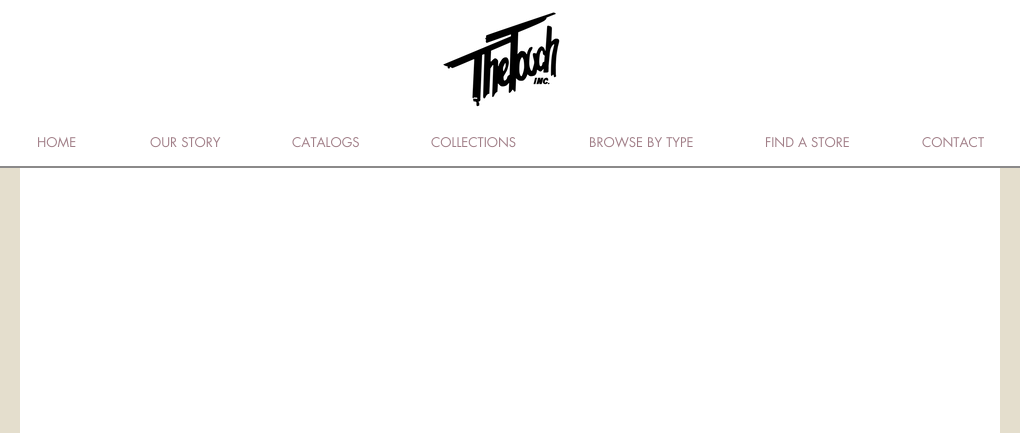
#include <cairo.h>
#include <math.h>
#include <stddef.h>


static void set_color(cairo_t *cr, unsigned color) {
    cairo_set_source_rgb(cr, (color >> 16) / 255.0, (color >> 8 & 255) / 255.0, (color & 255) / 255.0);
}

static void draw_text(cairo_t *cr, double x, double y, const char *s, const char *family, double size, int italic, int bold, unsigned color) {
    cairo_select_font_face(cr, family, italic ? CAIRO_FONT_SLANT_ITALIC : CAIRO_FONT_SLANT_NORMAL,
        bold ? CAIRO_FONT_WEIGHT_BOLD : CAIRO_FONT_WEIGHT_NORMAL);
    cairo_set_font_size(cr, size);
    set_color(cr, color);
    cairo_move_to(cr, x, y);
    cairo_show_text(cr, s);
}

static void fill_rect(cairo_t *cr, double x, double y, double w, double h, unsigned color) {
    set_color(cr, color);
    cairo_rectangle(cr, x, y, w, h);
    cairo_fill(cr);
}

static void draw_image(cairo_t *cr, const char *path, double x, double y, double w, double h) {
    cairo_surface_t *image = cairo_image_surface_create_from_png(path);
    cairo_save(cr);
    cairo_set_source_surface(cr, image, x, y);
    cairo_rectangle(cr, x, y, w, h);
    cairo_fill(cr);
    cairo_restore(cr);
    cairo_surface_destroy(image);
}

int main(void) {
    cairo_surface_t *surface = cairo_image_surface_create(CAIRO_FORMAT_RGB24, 1020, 433);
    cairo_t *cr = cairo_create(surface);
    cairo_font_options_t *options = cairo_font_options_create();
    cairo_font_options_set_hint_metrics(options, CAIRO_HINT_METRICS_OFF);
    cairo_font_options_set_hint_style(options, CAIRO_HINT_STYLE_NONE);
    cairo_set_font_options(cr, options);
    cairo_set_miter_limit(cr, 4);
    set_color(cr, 0xE4DECD);
    cairo_paint(cr);
    fill_rect(cr, 0, 0, 1020, 166, 0xFFFFFF);
    fill_rect(cr, 0, 166, 1020, 2, 0x8B8A8A);
    draw_image(cr, "assets/img1.png", 443, 12, 117, 95);
    draw_text(cr, 37, 147, "HOME", "futura", 13, 0, 0, 0xA28089);
    draw_text(cr, 150, 147, "OUR STORY", "futura", 13, 0, 0, 0xA28089);
    draw_text(cr, 292, 147, "CATALOGS", "futura", 13, 0, 0, 0xA28089);
    draw_text(cr, 431, 147, "COLLECTIONS", "futura", 13, 0, 0, 0xA28089);
    draw_text(cr, 589, 147, "BROWSE BY TYPE", "futura", 13, 0, 0, 0xA28089);
    draw_text(cr, 765, 147, "FIND A STORE", "futura", 13, 0, 0, 0xA28089);
    draw_text(cr, 922, 147, "CONTACT", "futura", 13, 0, 0, 0xA28089);
    fill_rect(cr, 20, 168, 980, 265, 0xFFFFFF);
    cairo_surface_write_to_png(surface, "output.png");
    cairo_font_options_destroy(options);
    cairo_destroy(cr);
    cairo_surface_destroy(surface);
    return 0;
}
